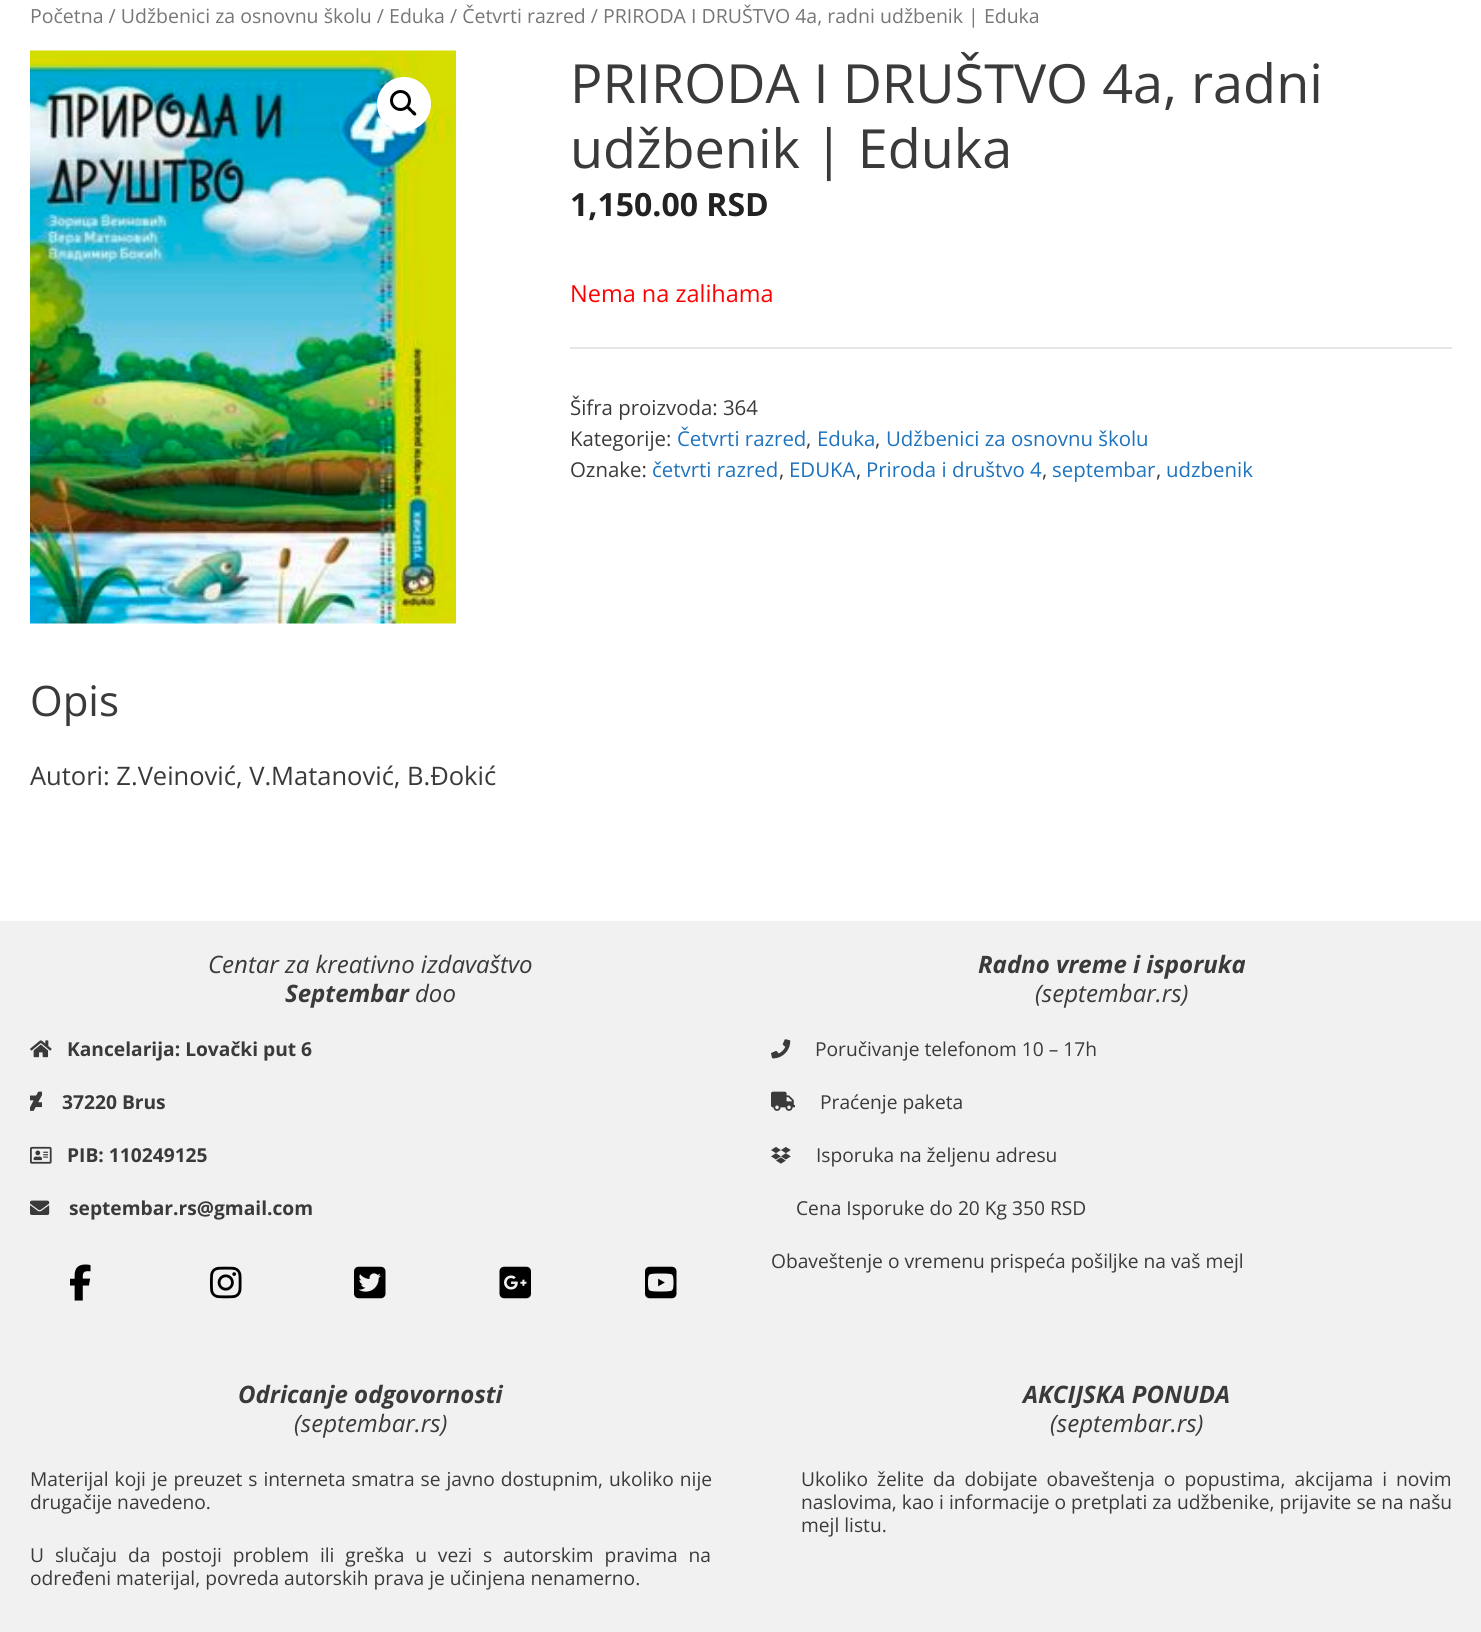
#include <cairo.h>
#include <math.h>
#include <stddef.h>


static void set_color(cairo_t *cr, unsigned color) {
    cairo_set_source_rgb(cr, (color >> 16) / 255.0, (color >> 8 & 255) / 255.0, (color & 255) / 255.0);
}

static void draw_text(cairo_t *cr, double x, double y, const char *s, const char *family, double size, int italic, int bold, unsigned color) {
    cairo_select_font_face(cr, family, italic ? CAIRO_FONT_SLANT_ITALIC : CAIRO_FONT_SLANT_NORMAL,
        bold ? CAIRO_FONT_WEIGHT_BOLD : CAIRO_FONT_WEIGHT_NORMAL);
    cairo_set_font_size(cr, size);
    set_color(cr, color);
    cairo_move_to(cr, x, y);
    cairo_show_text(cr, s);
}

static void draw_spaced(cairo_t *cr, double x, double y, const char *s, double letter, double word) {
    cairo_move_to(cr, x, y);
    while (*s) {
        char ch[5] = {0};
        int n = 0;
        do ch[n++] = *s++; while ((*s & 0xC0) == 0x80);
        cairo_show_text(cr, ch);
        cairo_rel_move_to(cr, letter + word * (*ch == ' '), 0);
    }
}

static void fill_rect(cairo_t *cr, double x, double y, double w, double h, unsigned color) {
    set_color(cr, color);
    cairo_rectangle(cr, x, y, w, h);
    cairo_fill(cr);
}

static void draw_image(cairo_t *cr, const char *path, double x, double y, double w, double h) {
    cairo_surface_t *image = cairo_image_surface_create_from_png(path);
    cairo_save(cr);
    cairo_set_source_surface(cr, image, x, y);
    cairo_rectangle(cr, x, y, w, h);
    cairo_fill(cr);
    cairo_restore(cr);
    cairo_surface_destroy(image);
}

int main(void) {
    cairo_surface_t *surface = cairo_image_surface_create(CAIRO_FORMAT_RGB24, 1481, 1632);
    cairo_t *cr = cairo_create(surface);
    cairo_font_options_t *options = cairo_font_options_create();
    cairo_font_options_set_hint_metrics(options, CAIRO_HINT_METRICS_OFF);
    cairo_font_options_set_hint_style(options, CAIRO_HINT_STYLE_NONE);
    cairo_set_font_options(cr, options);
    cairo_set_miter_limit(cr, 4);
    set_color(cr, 0xFFFFFF);
    cairo_paint(cr);
    draw_text(cr, 30, 23, "Početna / Udžbenici za osnovnu školu / Eduka / Četvrti razred / PRIRODA I DRUŠTVO 4a, radni udžbenik | Eduka", "Open Sans", 19.5, 0, 0, 0x767676);
    draw_image(cr, "assets/img1.png", 30, 50, 426, 574);
    set_color(cr, 0xFFFFFF);
    cairo_arc(cr, 404, 104, 27, 0, 2 * M_PI);
    cairo_fill(cr);
    cairo_arc(cr, 400.5, 100.5, 9, 0, 2 * M_PI);
    set_color(cr, 0x000000);
    cairo_set_line_width(cr, 3);
    cairo_stroke(cr);
    cairo_new_path(cr);
    cairo_move_to(cr, 407.5, 106.5);
    cairo_curve_to(cr, 409, 105, 411.5, 109, 412.5, 110);
    cairo_curve_to(cr, 413.5, 110.5, 417.5, 113.5, 416, 115);
    cairo_curve_to(cr, 414, 117, 411.5, 113, 410.5, 112);
    cairo_curve_to(cr, 409.5, 111, 405.5, 108.5, 407.5, 106.5);
    cairo_close_path(cr);
    cairo_fill(cr);
    draw_text(cr, 570, 103, "PRIRODA I DRUŠTVO 4a, radni", "Open Sans", 54, 0, 0, 0x3A3A3A);
    draw_text(cr, 570, 168, "udžbenik | Eduka", "Open Sans", 54, 0, 0, 0x3A3A3A);
    draw_text(cr, 570, 216, "1,150.00 RSD", "Open Sans", 32, 0, 1, 0x222222);
    draw_text(cr, 570, 302, "Nema na zalihama", "Open Sans", 23.5, 0, 0, 0xFF0000);
    fill_rect(cr, 570, 347, 882, 2, 0xE6E6E6);
    draw_text(cr, 570, 415, "Šifra proizvoda: 364", "Open Sans", 20.4, 0, 0, 0x3A3A3A);
    draw_text(cr, 570, 446, "Kategorije:", "Open Sans", 20.4, 0, 0, 0x3A3A3A);
    draw_text(cr, 677, 446, "Četvrti razred", "Open Sans", 20.4, 0, 0, 0x1E73BE);
    draw_text(cr, 806, 446, ",", "Open Sans", 20.4, 0, 0, 0x3A3A3A);
    draw_text(cr, 817, 446, "Eduka", "Open Sans", 20.4, 0, 0, 0x1E73BE);
    draw_text(cr, 875, 446, ",", "Open Sans", 20.4, 0, 0, 0x3A3A3A);
    draw_text(cr, 886, 446, "Udžbenici za osnovnu školu", "Open Sans", 20.4, 0, 0, 0x1E73BE);
    draw_text(cr, 570, 477, "Oznake:", "Open Sans", 20.4, 0, 0, 0x3A3A3A);
    draw_text(cr, 652, 477, "četvrti razred", "Open Sans", 20.4, 0, 0, 0x1E73BE);
    draw_text(cr, 779, 477, ",", "Open Sans", 20.4, 0, 0, 0x3A3A3A);
    draw_text(cr, 789, 477, "EDUKA", "Open Sans", 20.4, 0, 0, 0x1E73BE);
    draw_text(cr, 856, 477, ",", "Open Sans", 20.4, 0, 0, 0x3A3A3A);
    draw_text(cr, 866, 477, "Priroda i društvo 4", "Open Sans", 20.4, 0, 0, 0x1E73BE);
    draw_text(cr, 1042, 477, ",", "Open Sans", 20.4, 0, 0, 0x3A3A3A);
    draw_text(cr, 1052, 477, "septembar", "Open Sans", 20.4, 0, 0, 0x1E73BE);
    draw_text(cr, 1156, 477, ",", "Open Sans", 20.4, 0, 0, 0x3A3A3A);
    draw_text(cr, 1166, 477, "udzbenik", "Open Sans", 20.4, 0, 0, 0x1E73BE);
    draw_text(cr, 30, 716, "Opis", "Open Sans", 42, 0, 0, 0x3A3A3A);
    draw_text(cr, 30, 785, "Autori: Z.Veinović, V.Matanović, B.Đokić", "Open Sans", 25.5, 0, 0, 0x3A3A3A);
    fill_rect(cr, 0, 921, 1481, 711, 0xF1F1F1);
    draw_text(cr, 208, 973, "Centar za kreativno izdavaštvo", "Open Sans", 24, 1, 0, 0x3A3A3A);
    draw_text(cr, 285, 1002, "Septembar", "Open Sans", 24, 1, 1, 0x3A3A3A);
    draw_text(cr, 415, 1002, "doo", "Open Sans", 24, 1, 0, 0x3A3A3A);
    draw_image(cr, "assets/img2.png", 30, 1040, 22, 18);
    draw_text(cr, 67, 1056, "Kancelarija: Lovački put 6", "Open Sans", 19.2, 0, 1, 0x3A3A3A);
    draw_image(cr, "assets/img3.png", 30, 1091, 12, 20);
    draw_text(cr, 62, 1109, "37220 Brus", "Open Sans", 19.2, 0, 1, 0x3A3A3A);
    draw_image(cr, "assets/img4.png", 30, 1146, 22, 18);
    draw_text(cr, 67, 1162, "PIB: 110249125", "Open Sans", 19.2, 0, 1, 0x3A3A3A);
    draw_image(cr, "assets/img5.png", 30, 1200, 20, 15);
    draw_text(cr, 69, 1215, "septembar.rs@gmail.com", "Open Sans", 19.2, 0, 1, 0x3A3A3A);
    draw_image(cr, "assets/img6.png", 70, 1264, 21, 37);
    draw_image(cr, "assets/img7.png", 210, 1266, 32, 33);
    draw_image(cr, "assets/img8.png", 354, 1266, 32, 33);
    draw_image(cr, "assets/img9.png", 499, 1266, 32, 33);
    draw_image(cr, "assets/img10.png", 645, 1266, 32, 33);
    draw_text(cr, 978, 973, "Radno vreme i isporuka", "Open Sans", 24, 1, 1, 0x3A3A3A);
    draw_text(cr, 1035, 1002, "(septembar.rs)", "Open Sans", 24, 1, 0, 0x3A3A3A);
    draw_image(cr, "assets/img11.png", 771, 1039, 20, 20);
    draw_text(cr, 815, 1056, "Poručivanje telefonom 10 – 17h", "Open Sans", 19.2, 0, 0, 0x3A3A3A);
    draw_image(cr, "assets/img12.png", 771, 1091, 24, 20);
    draw_text(cr, 820, 1109, "Praćenje paketa", "Open Sans", 19.2, 0, 0, 0x3A3A3A);
    draw_image(cr, "assets/img13.png", 771, 1147, 20, 17);
    draw_text(cr, 816, 1162, "Isporuka na željenu adresu", "Open Sans", 19.2, 0, 0, 0x3A3A3A);
    draw_text(cr, 796, 1215, "Cena Isporuke do 20 Kg 350 RSD", "Open Sans", 19.2, 0, 0, 0x3A3A3A);
    draw_text(cr, 771, 1268, "Obaveštenje o vremenu prispeća pošiljke na vaš mejl", "Open Sans", 19.2, 0, 0, 0x3A3A3A);
    draw_text(cr, 238, 1403, "Odricanje odgovornosti", "Open Sans", 24, 1, 1, 0x3A3A3A);
    draw_text(cr, 294, 1432, "(septembar.rs)", "Open Sans", 24, 1, 0, 0x3A3A3A);
    cairo_select_font_face(cr, "Open Sans", CAIRO_FONT_SLANT_NORMAL, CAIRO_FONT_WEIGHT_NORMAL);
    cairo_set_font_size(cr, 19.2);
    draw_spaced(cr, 30, 1486, "Materijal koji je preuzet s interneta smatra se javno dostupnim, ukoliko nije", 0, 1);
    draw_text(cr, 30, 1509, "drugačije navedeno.", "Open Sans", 19.2, 0, 0, 0x3A3A3A);
    draw_spaced(cr, 30, 1562, "U slučaju da postoji problem ili greška u vezi s autorskim pravima na", 0, 5.9);
    draw_text(cr, 30, 1585, "određeni materijal, povreda autorskih prava je učinjena nenamerno.", "Open Sans", 19.2, 0, 0, 0x3A3A3A);
    draw_text(cr, 1023, 1403, "AKCIJSKA PONUDA", "Open Sans", 24, 1, 1, 0x3A3A3A);
    draw_text(cr, 1050, 1432, "(septembar.rs)", "Open Sans", 24, 1, 0, 0x3A3A3A);
    cairo_select_font_face(cr, "Open Sans", CAIRO_FONT_SLANT_NORMAL, CAIRO_FONT_WEIGHT_NORMAL);
    cairo_set_font_size(cr, 19.2);
    draw_spaced(cr, 801, 1486, "Ukoliko želite da dobijate obaveštenja o popustima, akcijama i novim", 0, 4);
    draw_text(cr, 801, 1509, "naslovima, kao i informacije o pretplati za udžbenike, prijavite se na našu", "Open Sans", 19.2, 0, 0, 0x3A3A3A);
    draw_text(cr, 801, 1532, "mejl listu.", "Open Sans", 19.2, 0, 0, 0x3A3A3A);
    cairo_surface_write_to_png(surface, "output.png");
    cairo_font_options_destroy(options);
    cairo_destroy(cr);
    cairo_surface_destroy(surface);
    return 0;
}
